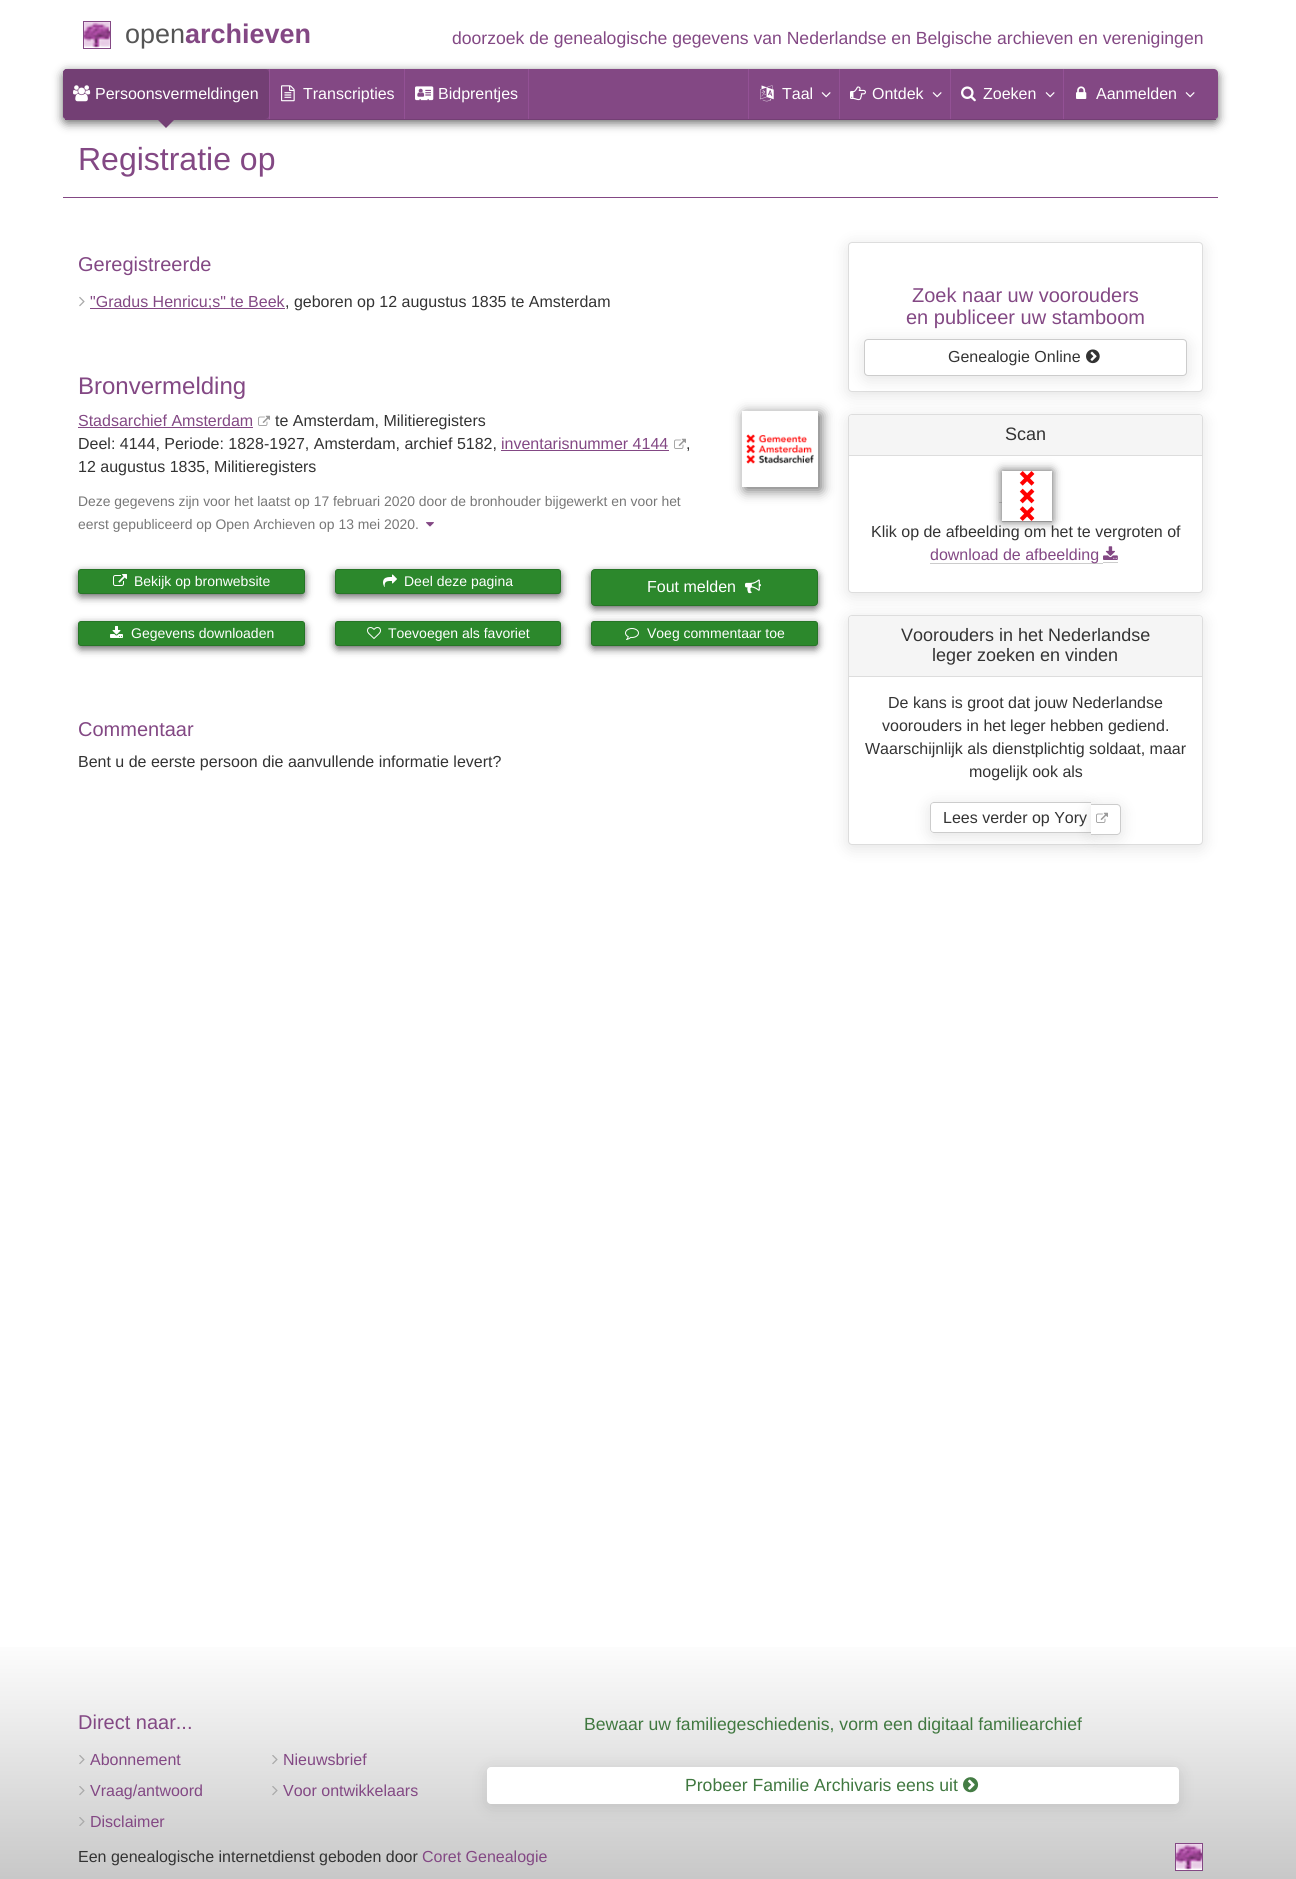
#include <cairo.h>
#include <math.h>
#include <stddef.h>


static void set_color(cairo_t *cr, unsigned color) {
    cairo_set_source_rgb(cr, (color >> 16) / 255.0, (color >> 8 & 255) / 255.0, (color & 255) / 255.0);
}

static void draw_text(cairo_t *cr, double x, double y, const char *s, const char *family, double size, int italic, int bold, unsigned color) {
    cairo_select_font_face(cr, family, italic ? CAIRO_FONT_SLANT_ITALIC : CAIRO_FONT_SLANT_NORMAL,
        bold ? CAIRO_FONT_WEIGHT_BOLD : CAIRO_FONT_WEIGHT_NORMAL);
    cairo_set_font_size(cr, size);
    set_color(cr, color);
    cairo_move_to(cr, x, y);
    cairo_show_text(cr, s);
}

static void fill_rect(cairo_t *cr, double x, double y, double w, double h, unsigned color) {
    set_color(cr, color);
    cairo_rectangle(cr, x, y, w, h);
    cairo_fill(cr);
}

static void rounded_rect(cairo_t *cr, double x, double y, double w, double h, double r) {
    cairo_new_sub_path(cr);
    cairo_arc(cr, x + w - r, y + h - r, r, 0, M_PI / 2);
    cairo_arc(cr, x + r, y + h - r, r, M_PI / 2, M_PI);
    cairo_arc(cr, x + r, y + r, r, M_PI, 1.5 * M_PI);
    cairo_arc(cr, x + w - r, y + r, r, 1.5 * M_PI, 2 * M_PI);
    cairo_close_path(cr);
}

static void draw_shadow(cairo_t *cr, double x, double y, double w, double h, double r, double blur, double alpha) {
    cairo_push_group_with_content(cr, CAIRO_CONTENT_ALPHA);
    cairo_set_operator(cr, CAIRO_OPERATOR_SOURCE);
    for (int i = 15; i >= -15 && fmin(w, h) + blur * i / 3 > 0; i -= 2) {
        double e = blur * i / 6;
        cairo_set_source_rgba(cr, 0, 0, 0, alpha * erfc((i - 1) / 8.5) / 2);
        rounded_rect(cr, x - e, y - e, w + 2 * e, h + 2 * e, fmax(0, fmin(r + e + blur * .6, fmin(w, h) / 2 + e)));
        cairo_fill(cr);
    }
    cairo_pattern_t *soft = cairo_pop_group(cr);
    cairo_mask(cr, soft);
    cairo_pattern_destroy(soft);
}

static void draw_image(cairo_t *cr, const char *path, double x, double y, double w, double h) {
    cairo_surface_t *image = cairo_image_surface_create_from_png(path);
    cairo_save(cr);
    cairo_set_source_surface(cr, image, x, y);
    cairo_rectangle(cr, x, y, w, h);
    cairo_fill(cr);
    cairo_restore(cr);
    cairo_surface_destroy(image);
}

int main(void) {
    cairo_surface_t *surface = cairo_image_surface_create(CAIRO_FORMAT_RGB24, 1296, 1879);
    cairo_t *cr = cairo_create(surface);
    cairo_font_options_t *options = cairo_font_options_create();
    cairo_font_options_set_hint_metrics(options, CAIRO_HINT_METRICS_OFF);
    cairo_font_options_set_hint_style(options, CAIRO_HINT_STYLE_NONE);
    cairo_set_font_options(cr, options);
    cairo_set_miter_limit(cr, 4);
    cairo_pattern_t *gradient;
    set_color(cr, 0xFFFFFF);
    cairo_paint(cr);
    draw_image(cr, "assets/img1.png", 84, 22, 26, 26);
    cairo_rectangle(cr, 83.5, 21.5, 27, 27);
    set_color(cr, 0x834884);
    cairo_set_line_width(cr, 1);
    cairo_stroke(cr);
    draw_text(cr, 125, 43, "open", "Liberation Sans", 27, 0, 0, 0x555555);
    draw_text(cr, 185, 43, "archieven", "Liberation Sans", 27, 0, 1, 0x834884);
    draw_text(cr, 452, 44, "doorzoek de genealogische gegevens van Nederlandse en Belgische archieven en verenigingen", "Liberation Sans", 17.6, 0, 0, 0x834884);
    set_color(cr, 0x323232);
    draw_shadow(cr, 63, 72, 1155, 51, 4, 5, 0.73);
    set_color(cr, 0x834884);
    cairo_new_path(cr);
    cairo_move_to(cr, 67, 69);
    cairo_line_to(cr, 1214, 69);
    cairo_curve_to(cr, 1216, 69, 1218, 71, 1218, 73);
    cairo_line_to(cr, 1218, 116);
    cairo_curve_to(cr, 1218, 118, 1216, 119, 1214, 119);
    cairo_line_to(cr, 67, 119);
    cairo_curve_to(cr, 65, 119, 63, 118, 63, 116);
    cairo_line_to(cr, 63, 73);
    cairo_curve_to(cr, 63, 71, 65, 69, 67, 69);
    cairo_close_path(cr);
    cairo_fill(cr);
    fill_rect(cr, 65, 119, 1151, 1, 0x733F74);
    set_color(cr, 0x834884);
    rounded_rect(cr, 63, 69, 1140, 50, 4);
    cairo_fill(cr);
    set_color(cr, 0x733F74);
    rounded_rect(cr, 63, 69, 206, 50, 4);
    cairo_fill(cr);
    draw_image(cr, "assets/img2.png", 73, 85, 18, 17);
    draw_text(cr, 95, 99, "Persoonsvermeldingen", "Liberation Sans", 16, 0, 0, 0xFFFFFF);
    set_color(cr, 0x733F74);
    cairo_new_path(cr);
    cairo_move_to(cr, 158, 120);
    cairo_line_to(cr, 174, 120);
    cairo_line_to(cr, 166, 128);
    cairo_close_path(cr);
    cairo_fill(cr);
    fill_rect(cr, 269, 69, 1, 50, 0x935195);
    draw_image(cr, "assets/img3.png", 281, 85, 14, 17);
    draw_text(cr, 303, 99, "Transcripties", "Liberation Sans", 16, 0, 0, 0xFFFFFF);
    fill_rect(cr, 404, 69, 1, 50, 0x935195);
    draw_image(cr, "assets/img4.png", 415, 86, 19, 15);
    draw_text(cr, 438, 99, "Bidprentjes", "Liberation Sans", 16, 0, 0, 0xFFFFFF);
    fill_rect(cr, 528, 69, 1, 50, 0x935195);
    fill_rect(cr, 748, 69, 1, 50, 0x935195);
    draw_image(cr, "assets/img5.png", 760, 85, 14, 17);
    draw_text(cr, 782, 99, "Taal", "Liberation Sans", 16, 0, 0, 0xFFFFFF);
    draw_image(cr, "assets/img6.png", 821, 92, 10, 6);
    fill_rect(cr, 839, 69, 1, 50, 0x935195);
    draw_image(cr, "assets/img7.png", 850, 86, 16, 15);
    draw_text(cr, 872, 99, "Ontdek", "Liberation Sans", 16, 0, 0, 0xFFFFFF);
    draw_image(cr, "assets/img6.png", 932, 92, 10, 6);
    fill_rect(cr, 950, 69, 1, 50, 0x935195);
    draw_image(cr, "assets/img8.png", 961, 86, 15, 16);
    draw_text(cr, 983, 99, "Zoeken", "Liberation Sans", 16, 0, 0, 0xFFFFFF);
    draw_image(cr, "assets/img6.png", 1045, 92, 10, 6);
    fill_rect(cr, 1063, 69, 1, 50, 0x935195);
    draw_image(cr, "assets/img9.png", 1076, 86, 11, 13);
    draw_text(cr, 1096, 99, "Aanmelden", "Liberation Sans", 16, 0, 0, 0xFFFFFF);
    draw_image(cr, "assets/img6.png", 1185, 92, 10, 6);
    fill_rect(cr, 63, 197, 1155, 1, 0x834884);
    draw_text(cr, 78, 170, "Registratie op", "Liberation Sans", 32, 0, 0, 0x834884);
    draw_text(cr, 78, 271, "Geregistreerde", "Liberation Sans", 20, 0, 0, 0x834884);
    draw_image(cr, "assets/img10.png", 79, 296, 6, 11);
    fill_rect(cr, 90, 308, 195, 1, 0x834884);
    draw_text(cr, 90, 307, "\"Gradus Henricu;s\" te Beek", "Liberation Sans", 16, 0, 0, 0x834884);
    draw_text(cr, 285, 307, ", geboren op 12 augustus 1835 te Amsterdam", "Liberation Sans", 16, 0, 0, 0x333333);
    draw_text(cr, 78, 394, "Bronvermelding", "Liberation Sans", 24, 0, 0, 0x834884);
    draw_text(cr, 78, 426, "Stadsarchief Amsterdam", "Liberation Sans", 16, 0, 0, 0x834884);
    fill_rect(cr, 78, 427, 175, 1, 0x834884);
    draw_image(cr, "assets/img11.png", 258, 415, 12, 11);
    draw_text(cr, 275, 426, "te Amsterdam, Militieregisters", "Liberation Sans", 16, 0, 0, 0x333333);
    draw_text(cr, 78, 449, "Deel: 4144, Periode: 1828-1927, Amsterdam, archief 5182,", "Liberation Sans", 16, 0, 0, 0x333333);
    draw_text(cr, 501, 449, "inventarisnummer 4144", "Liberation Sans", 16, 0, 0, 0x834884);
    fill_rect(cr, 501, 450, 168, 1, 0x834884);
    draw_image(cr, "assets/img11.png", 674, 438, 12, 11);
    draw_text(cr, 686, 449, ",", "Liberation Sans", 16, 0, 0, 0x333333);
    draw_text(cr, 78, 472, "12 augustus 1835, Militieregisters", "Liberation Sans", 16, 0, 0, 0x333333);
    cairo_save(cr);
    cairo_set_fill_rule(cr, CAIRO_FILL_RULE_EVEN_ODD);
    cairo_new_path(cr);
    cairo_move_to(cr, 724, 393);
    cairo_line_to(cr, 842, 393);
    cairo_line_to(cr, 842, 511);
    cairo_line_to(cr, 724, 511);
    cairo_close_path(cr);
    cairo_move_to(cr, 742, 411);
    cairo_line_to(cr, 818, 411);
    cairo_line_to(cr, 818, 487);
    cairo_line_to(cr, 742, 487);
    cairo_close_path(cr);
    cairo_clip(cr);
    set_color(cr, 0x323232);
    draw_shadow(cr, 745, 414, 76, 76, 0, 6.5, 0.75);
    cairo_restore(cr);
    draw_image(cr, "assets/img12.png", 746, 434, 68, 30);
    draw_text(cr, 78, 506, "Deze gegevens zijn voor het laatst op 17 februari 2020 door de bronhouder bijgewerkt en voor het", "Liberation Sans", 13.9, 0, 0, 0x777777);
    draw_text(cr, 78, 529, "eerst gepubliceerd op Open Archieven op 13 mei 2020.", "Liberation Sans", 13.9, 0, 0, 0x777777);
    draw_image(cr, "assets/img13.png", 426, 522, 8, 5);
    set_color(cr, 0x323232);
    draw_shadow(cr, 78, 572, 227, 25, 3, 4, 0.73);
    set_color(cr, 0x2C882C);
    rounded_rect(cr, 78.5, 569.5, 226, 24, 2.5);
    cairo_fill_preserve(cr);
    set_color(cr, 0x267526);
    cairo_stroke(cr);
    draw_image(cr, "assets/img14.png", 113, 574, 14, 12);
    draw_text(cr, 134, 586, "Bekijk op bronwebsite", "Liberation Sans", 14, 0, 0, 0xFFFFFF);
    set_color(cr, 0x323232);
    draw_shadow(cr, 335, 572, 226, 25, 3, 4, 0.73);
    set_color(cr, 0x2C882C);
    rounded_rect(cr, 335.5, 569.5, 225, 24, 2.5);
    cairo_fill_preserve(cr);
    set_color(cr, 0x267526);
    cairo_stroke(cr);
    draw_image(cr, "assets/img15.png", 383, 574, 14, 13);
    draw_text(cr, 404, 586, "Deel deze pagina", "Liberation Sans", 14, 0, 0, 0xFFFFFF);
    set_color(cr, 0x323232);
    draw_shadow(cr, 591, 572, 227, 37, 4, 4, 0.73);
    set_color(cr, 0x2C882C);
    rounded_rect(cr, 591.5, 569.5, 226, 36, 3.5);
    cairo_fill_preserve(cr);
    set_color(cr, 0x267526);
    cairo_stroke(cr);
    draw_text(cr, 647, 592, "Fout melden", "Liberation Sans", 16, 0, 0, 0xFFFFFF);
    draw_image(cr, "assets/img16.png", 745, 579, 16, 15);
    set_color(cr, 0x323232);
    draw_shadow(cr, 78, 624, 227, 25, 3, 4, 0.73);
    set_color(cr, 0x2C882C);
    rounded_rect(cr, 78.5, 621.5, 226, 24, 2.5);
    cairo_fill_preserve(cr);
    set_color(cr, 0x267526);
    cairo_stroke(cr);
    draw_image(cr, "assets/img17.png", 110, 626, 13, 12);
    draw_text(cr, 131, 638, "Gegevens downloaden", "Liberation Sans", 14, 0, 0, 0xFFFFFF);
    set_color(cr, 0x323232);
    draw_shadow(cr, 335, 624, 226, 25, 3, 4, 0.73);
    set_color(cr, 0x2C882C);
    rounded_rect(cr, 335.5, 621.5, 225, 24, 2.5);
    cairo_fill_preserve(cr);
    set_color(cr, 0x267526);
    cairo_stroke(cr);
    draw_image(cr, "assets/img18.png", 367, 627, 14, 12);
    draw_text(cr, 388, 638, "Toevoegen als favoriet", "Liberation Sans", 14, 0, 0, 0xFFFFFF);
    set_color(cr, 0x323232);
    draw_shadow(cr, 591, 624, 227, 25, 3, 4, 0.73);
    set_color(cr, 0x2C882C);
    rounded_rect(cr, 591.5, 621.5, 226, 24, 2.5);
    cairo_fill_preserve(cr);
    set_color(cr, 0x267526);
    cairo_stroke(cr);
    draw_image(cr, "assets/img19.png", 625, 628, 14, 12);
    draw_text(cr, 647, 638, "Voeg commentaar toe", "Liberation Sans", 14, 0, 0, 0xFFFFFF);
    draw_text(cr, 78, 736, "Commentaar", "Liberation Sans", 20, 0, 0, 0x834884);
    draw_text(cr, 78, 767, "Bent u de eerste persoon die aanvullende informatie levert?", "Liberation Sans", 16, 0, 0, 0x333333);
    set_color(cr, 0x000000);
    draw_shadow(cr, 847, 244, 357, 152, 5, 7.5, 0.1);
    set_color(cr, 0xFFFFFF);
    rounded_rect(cr, 848.5, 242.5, 354, 149, 3.5);
    cairo_fill_preserve(cr);
    set_color(cr, 0xDDDDDD);
    cairo_stroke(cr);
    draw_text(cr, 912, 302, "Zoek naar uw voorouders", "Liberation Sans", 20, 0, 0, 0x834884);
    set_color(cr, 0x000000);
    draw_shadow(cr, 863, 341, 325, 39, 5, 7.5, 0.1);
    draw_text(cr, 906, 324, "en publiceer uw stamboom", "Liberation Sans", 20, 0, 0, 0x834884);
    set_color(cr, 0xFFFFFF);
    rounded_rect(cr, 864.5, 339.5, 322, 36, 3.5);
    cairo_fill_preserve(cr);
    set_color(cr, 0xCCCCCC);
    cairo_stroke(cr);
    draw_text(cr, 948, 362, "Genealogie Online", "Liberation Sans", 16, 0, 0, 0x333333);
    draw_image(cr, "assets/img20.png", 1086, 349, 14, 15);
    set_color(cr, 0x000000);
    draw_shadow(cr, 847, 416, 357, 181, 5, 7.5, 0.1);
    set_color(cr, 0xFFFFFF);
    rounded_rect(cr, 848.5, 414.5, 354, 178, 3.5);
    cairo_fill_preserve(cr);
    set_color(cr, 0xDDDDDD);
    cairo_stroke(cr);
    set_color(cr, 0xF5F5F5);
    cairo_new_path(cr);
    cairo_move_to(cr, 852, 415);
    cairo_line_to(cr, 1199, 415);
    cairo_curve_to(cr, 1200.5, 415, 1202, 416.5, 1202, 418);
    cairo_line_to(cr, 1202, 456);
    cairo_line_to(cr, 849, 456);
    cairo_line_to(cr, 849, 418);
    cairo_curve_to(cr, 849, 416.5, 850.5, 415, 852, 415);
    cairo_close_path(cr);
    cairo_fill(cr);
    fill_rect(cr, 849, 455, 353, 1, 0xDDDDDD);
    draw_text(cr, 1005, 440, "Scan", "Liberation Sans", 18, 0, 0, 0x333333);
    fill_rect(cr, 999, 502, 3, 1, 0xCCCCCC);
    fill_rect(cr, 1002, 521, 50, 1, 0xCCCCCC);
    set_color(cr, 0x555555);
    draw_shadow(cr, 1002, 471, 50, 50, 0, 5, 1);
    fill_rect(cr, 1002, 471, 50, 50, 0xFFFFFF);
    draw_image(cr, "assets/img21.png", 1019, 471, 16, 50);
    draw_text(cr, 871, 537, "Klik op de afbeelding om het te vergroten of", "Liberation Sans", 16, 0, 0, 0x333333);
    fill_rect(cr, 930, 563, 173, 1, 0xCCCCCC);
    fill_rect(cr, 1103, 562, 15, 1, 0xCCCCCC);
    draw_text(cr, 930, 560, "download de afbeelding", "Liberation Sans", 16, 0, 0, 0x834884);
    draw_image(cr, "assets/img22.png", 1103, 546, 15, 14);
    set_color(cr, 0x000000);
    draw_shadow(cr, 847, 617, 357, 232, 5, 7.5, 0.1);
    set_color(cr, 0xFFFFFF);
    rounded_rect(cr, 848.5, 615.5, 354, 229, 3.5);
    cairo_fill_preserve(cr);
    set_color(cr, 0xDDDDDD);
    cairo_stroke(cr);
    set_color(cr, 0xF5F5F5);
    cairo_new_path(cr);
    cairo_move_to(cr, 852, 616);
    cairo_line_to(cr, 1199, 616);
    cairo_curve_to(cr, 1200.5, 616, 1202, 617.5, 1202, 619);
    cairo_line_to(cr, 1202, 677);
    cairo_line_to(cr, 849, 677);
    cairo_line_to(cr, 849, 619);
    cairo_curve_to(cr, 849, 617.5, 850.5, 616, 852, 616);
    cairo_close_path(cr);
    cairo_fill(cr);
    fill_rect(cr, 849, 676, 353, 1, 0xDDDDDD);
    draw_text(cr, 901, 641, "Voorouders in het Nederlandse", "Liberation Sans", 18, 0, 0, 0x333333);
    draw_text(cr, 932, 661, "leger zoeken en vinden", "Liberation Sans", 18, 0, 0, 0x333333);
    draw_text(cr, 888, 708, "De kans is groot dat jouw Nederlandse", "Liberation Sans", 16, 0, 0, 0x333333);
    draw_text(cr, 882, 731, "voorouders in het leger hebben gediend.", "Liberation Sans", 16, 0, 0, 0x333333);
    draw_text(cr, 865, 754, "Waarschijnlijk als dienstplichtig soldaat, maar", "Liberation Sans", 16, 0, 0, 0x333333);
    draw_text(cr, 969, 777, "mogelijk ook als", "Liberation Sans", 16, 0, 0, 0x333333);
    set_color(cr, 0x000000);
    draw_shadow(cr, 929, 804, 163, 33, 5, 7.5, 0.1);
    set_color(cr, 0xFFFFFF);
    cairo_new_path(cr);
    cairo_move_to(cr, 934, 802);
    cairo_line_to(cr, 1091, 802);
    cairo_line_to(cr, 1091, 833);
    cairo_line_to(cr, 934, 833);
    cairo_curve_to(cr, 932, 833, 930, 831, 930, 829);
    cairo_line_to(cr, 930, 806);
    cairo_curve_to(cr, 930, 804, 932, 802, 934, 802);
    cairo_close_path(cr);
    cairo_fill(cr);
    set_color(cr, 0xCCCCCC);
    cairo_set_fill_rule(cr, CAIRO_FILL_RULE_EVEN_ODD);
    cairo_new_path(cr);
    cairo_move_to(cr, 934, 802);
    cairo_line_to(cr, 1091, 802);
    cairo_line_to(cr, 1091, 833);
    cairo_line_to(cr, 934, 833);
    cairo_curve_to(cr, 932, 833, 930, 831, 930, 829);
    cairo_line_to(cr, 930, 806);
    cairo_curve_to(cr, 930, 804, 932, 802, 934, 802);
    cairo_close_path(cr);
    cairo_move_to(cr, 934, 803);
    cairo_line_to(cr, 1091, 803);
    cairo_line_to(cr, 1091, 832);
    cairo_line_to(cr, 934, 832);
    cairo_curve_to(cr, 932, 832, 931, 831, 931, 829);
    cairo_line_to(cr, 931, 806);
    cairo_curve_to(cr, 931, 804, 932, 803, 934, 803);
    cairo_close_path(cr);
    cairo_fill(cr);
    set_color(cr, 0x000000);
    draw_shadow(cr, 1090, 806, 32, 33, 5, 7.5, 0.1);
    set_color(cr, 0xFFFFFF);
    cairo_new_path(cr);
    cairo_move_to(cr, 1091, 804);
    cairo_line_to(cr, 1117, 804);
    cairo_curve_to(cr, 1119, 804, 1121, 806, 1121, 808);
    cairo_line_to(cr, 1121, 831);
    cairo_curve_to(cr, 1121, 833, 1119, 835, 1117, 835);
    cairo_line_to(cr, 1091, 835);
    cairo_close_path(cr);
    cairo_fill(cr);
    set_color(cr, 0xCCCCCC);
    cairo_new_path(cr);
    cairo_move_to(cr, 1091, 804);
    cairo_line_to(cr, 1117, 804);
    cairo_curve_to(cr, 1119, 804, 1121, 806, 1121, 808);
    cairo_line_to(cr, 1121, 831);
    cairo_curve_to(cr, 1121, 833, 1119, 835, 1117, 835);
    cairo_line_to(cr, 1091, 835);
    cairo_close_path(cr);
    cairo_move_to(cr, 1091, 805);
    cairo_line_to(cr, 1117, 805);
    cairo_curve_to(cr, 1118.5, 805, 1120, 806.5, 1120, 808);
    cairo_line_to(cr, 1120, 831);
    cairo_curve_to(cr, 1120, 832.5, 1118.5, 834, 1117, 834);
    cairo_line_to(cr, 1091, 834);
    cairo_close_path(cr);
    cairo_fill(cr);
    draw_text(cr, 943, 823, "Lees verder op Yory", "Liberation Sans", 16, 0, 0, 0x333333);
    draw_image(cr, "assets/img11.png", 1096, 812, 12, 11);
    gradient = cairo_pattern_create_linear(648, 1879, 648, 1636);
    cairo_pattern_add_color_stop_rgba(gradient, 0, 0.784, 0.784, 0.784, 1);
    cairo_pattern_add_color_stop_rgba(gradient, 1, 1, 1, 1, 1);
    cairo_set_source(cr, gradient);
    cairo_pattern_destroy(gradient);
    cairo_rectangle(cr, 0, 1647, 1296, 232);
    cairo_fill(cr);
    draw_text(cr, 78, 1729, "Direct naar...", "Liberation Sans", 20, 0, 0, 0x834884);
    draw_image(cr, "assets/img23.png", 79, 1755, 6, 10);
    draw_text(cr, 90, 1765, "Abonnement", "Liberation Sans", 16, 0, 0, 0x834884);
    draw_image(cr, "assets/img24.png", 79, 1786, 6, 10);
    draw_text(cr, 90, 1796, "Vraag/antwoord", "Liberation Sans", 16, 0, 0, 0x834884);
    draw_image(cr, "assets/img25.png", 79, 1817, 6, 9);
    draw_text(cr, 90, 1827, "Disclaimer", "Liberation Sans", 16, 0, 0, 0x834884);
    draw_image(cr, "assets/img23.png", 272, 1755, 6, 10);
    draw_text(cr, 283, 1765, "Nieuwsbrief", "Liberation Sans", 16, 0, 0, 0x834884);
    draw_image(cr, "assets/img24.png", 272, 1786, 6, 10);
    draw_text(cr, 283, 1796, "Voor ontwikkelaars", "Liberation Sans", 16, 0, 0, 0x834884);
    draw_text(cr, 584, 1730, "Bewaar uw familiegeschiedenis, vorm een digitaal familiearchief", "Liberation Sans", 17.6, 0, 0, 0x407840);
    set_color(cr, 0x000000);
    draw_shadow(cr, 486, 1769, 694, 39, 5, 7.5, 0.1);
    set_color(cr, 0xFFFFFF);
    rounded_rect(cr, 487, 1767, 692, 37, 4);
    cairo_fill(cr);
    draw_text(cr, 685, 1791, "Probeer Familie Archivaris eens uit", "Liberation Sans", 17.6, 0, 0, 0x407840);
    draw_image(cr, "assets/img26.png", 963, 1777, 16, 16);
    draw_text(cr, 78, 1862, "Een genealogische internetdienst geboden door", "Liberation Sans", 16, 0, 0, 0x333333);
    draw_text(cr, 422, 1862, "Coret Genealogie", "Liberation Sans", 16, 0, 0, 0x834884);
    draw_image(cr, "assets/img1.png", 1176, 1844, 26, 26);
    cairo_rectangle(cr, 1175.5, 1843.5, 27, 27);
    cairo_stroke(cr);
    cairo_surface_write_to_png(surface, "output.png");
    cairo_font_options_destroy(options);
    cairo_destroy(cr);
    cairo_surface_destroy(surface);
    return 0;
}
